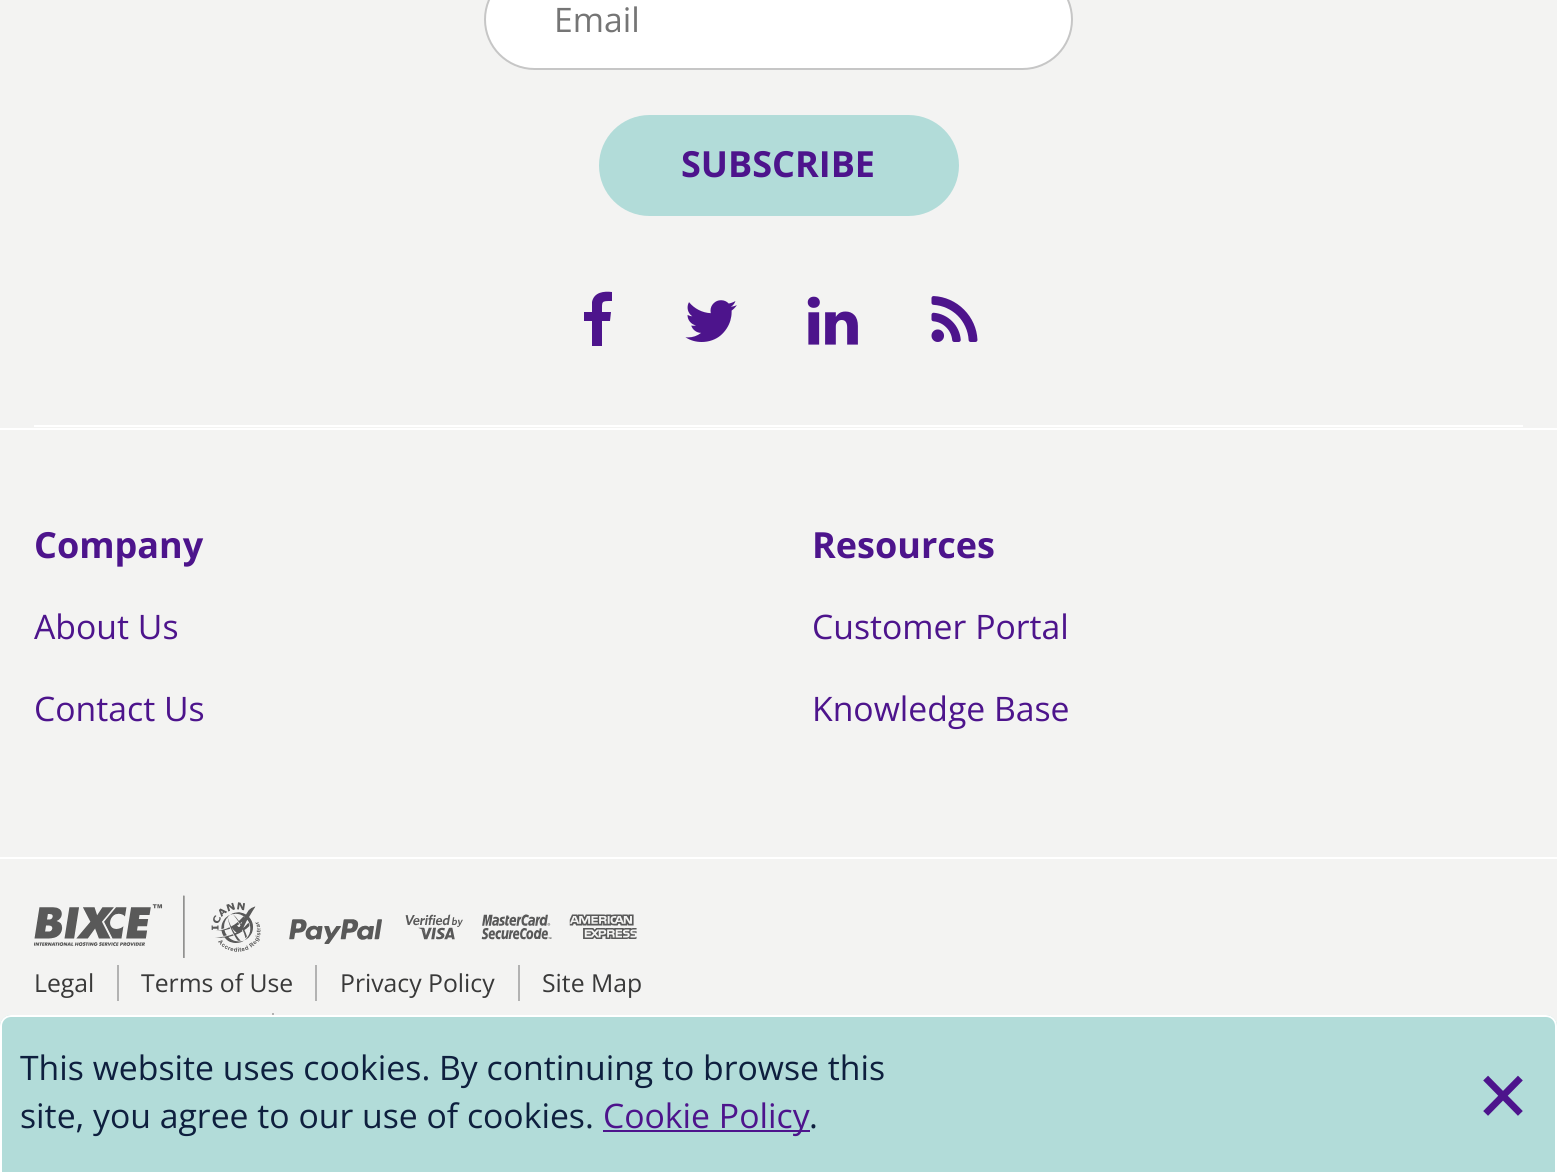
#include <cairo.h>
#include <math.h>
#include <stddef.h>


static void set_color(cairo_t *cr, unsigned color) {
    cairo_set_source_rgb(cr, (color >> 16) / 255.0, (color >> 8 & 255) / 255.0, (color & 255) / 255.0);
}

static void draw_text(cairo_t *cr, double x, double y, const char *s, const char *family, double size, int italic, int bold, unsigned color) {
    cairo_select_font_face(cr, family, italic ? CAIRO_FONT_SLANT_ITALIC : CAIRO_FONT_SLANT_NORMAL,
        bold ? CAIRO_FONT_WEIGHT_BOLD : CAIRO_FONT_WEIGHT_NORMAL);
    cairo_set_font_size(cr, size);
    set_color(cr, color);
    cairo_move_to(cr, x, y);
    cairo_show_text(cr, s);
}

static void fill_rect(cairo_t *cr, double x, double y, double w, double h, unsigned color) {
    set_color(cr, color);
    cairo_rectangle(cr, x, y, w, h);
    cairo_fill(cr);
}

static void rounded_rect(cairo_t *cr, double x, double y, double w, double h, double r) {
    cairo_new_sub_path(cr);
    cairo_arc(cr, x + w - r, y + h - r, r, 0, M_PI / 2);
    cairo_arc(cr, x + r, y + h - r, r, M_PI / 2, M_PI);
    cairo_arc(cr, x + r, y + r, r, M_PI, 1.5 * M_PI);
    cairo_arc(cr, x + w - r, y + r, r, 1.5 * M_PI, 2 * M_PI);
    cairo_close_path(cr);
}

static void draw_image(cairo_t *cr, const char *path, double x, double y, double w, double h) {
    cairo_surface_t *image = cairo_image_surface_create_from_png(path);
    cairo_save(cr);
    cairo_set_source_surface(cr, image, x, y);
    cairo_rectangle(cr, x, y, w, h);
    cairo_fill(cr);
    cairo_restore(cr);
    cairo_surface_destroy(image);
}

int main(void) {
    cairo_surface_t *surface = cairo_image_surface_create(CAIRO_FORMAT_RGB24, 1557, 1172);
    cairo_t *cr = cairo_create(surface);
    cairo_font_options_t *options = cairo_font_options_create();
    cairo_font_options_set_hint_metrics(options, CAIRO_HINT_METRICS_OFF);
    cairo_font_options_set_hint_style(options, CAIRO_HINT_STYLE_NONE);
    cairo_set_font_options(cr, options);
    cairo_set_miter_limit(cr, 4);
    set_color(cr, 0xF3F3F2);
    cairo_paint(cr);
    set_color(cr, 0xFFFFFF);
    rounded_rect(cr, 485, -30, 587, 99, 49.5);
    cairo_fill_preserve(cr);
    set_color(cr, 0xC6C6C6);
    cairo_stroke(cr);
    draw_text(cr, 554, 32, "Email", "Open Sans", 33.75, 0, 0, 0x757575);
    set_color(cr, 0xB2DCD9);
    rounded_rect(cr, 599, 115, 360, 101, 50.5);
    cairo_fill(cr);
    draw_text(cr, 681, 177, "SUBSCRIBE", "Open Sans", 36, 0, 1, 0x4D148C);
    fill_rect(cr, 34, 425, 1489, 2, 0xFFFFFF);
    set_color(cr, 0x4D148C);
    cairo_new_path(cr);
    cairo_move_to(cr, 612, 292);
    cairo_line_to(cr, 612, 301);
    cairo_curve_to(cr, 601, 301, 602, 301, 602, 312);
    cairo_line_to(cr, 611, 312);
    cairo_line_to(cr, 610, 321);
    cairo_line_to(cr, 602, 321);
    cairo_line_to(cr, 602, 346);
    cairo_line_to(cr, 592, 346);
    cairo_line_to(cr, 592, 321);
    cairo_line_to(cr, 584, 321);
    cairo_line_to(cr, 584, 312);
    cairo_line_to(cr, 592, 312);
    cairo_line_to(cr, 592, 302);
    cairo_curve_to(cr, 594, 292, 604, 291, 612, 292);
    cairo_close_path(cr);
    cairo_fill(cr);
    draw_image(cr, "assets/img1.png", 685, 300, 52, 42);
    draw_image(cr, "assets/img2.png", 807, 296, 51, 49);
    draw_image(cr, "assets/img3.png", 931, 296, 47, 46);
    fill_rect(cr, 0, 428, 1557, 2, 0xFFFFFF);
    fill_rect(cr, 0, 857, 1557, 2, 0xFFFFFF);
    draw_text(cr, 34, 558, "Company", "Open Sans", 36, 0, 1, 0x4D148C);
    draw_text(cr, 34, 639, "About Us", "Open Sans", 33.75, 0, 0, 0x4D148C);
    draw_text(cr, 34, 721, "Contact Us", "Open Sans", 33.75, 0, 0, 0x4D148C);
    draw_text(cr, 812, 558, "Resources", "Open Sans", 36, 0, 1, 0x4D148C);
    draw_text(cr, 812, 639, "Customer Portal", "Open Sans", 33.75, 0, 0, 0x4D148C);
    draw_text(cr, 812, 721, "Knowledge Base", "Open Sans", 33.75, 0, 0, 0x4D148C);
    draw_image(cr, "assets/img4.png", 34, 895, 603, 63);
    fill_rect(cr, 117, 965, 2, 36, 0xB2B2B2);
    draw_text(cr, 34, 992, "Legal", "Open Sans", 24.75, 0, 0, 0x393939);
    fill_rect(cr, 315, 965, 2, 36, 0xB2B2B2);
    draw_text(cr, 141, 992, "Terms of Use", "Open Sans", 24.75, 0, 0, 0x393939);
    fill_rect(cr, 518, 965, 2, 36, 0xB2B2B2);
    draw_text(cr, 340, 992, "Privacy Policy", "Open Sans", 24.75, 0, 0, 0x393939);
    draw_text(cr, 542, 992, "Site Map", "Open Sans", 24.75, 0, 0, 0x393939);
    fill_rect(cr, 272, 1013, 2, 2, 0xB2B2B2);
    set_color(cr, 0xB2DCD9);
    cairo_new_path(cr);
    cairo_move_to(cr, 11, 1015);
    cairo_line_to(cr, 1546, 1015);
    cairo_curve_to(cr, 1552, 1015, 1557, 1020, 1557, 1026);
    cairo_line_to(cr, 1557, 1172);
    cairo_line_to(cr, 0, 1172);
    cairo_line_to(cr, 0, 1026);
    cairo_curve_to(cr, 0, 1020, 5, 1015, 11, 1015);
    cairo_close_path(cr);
    cairo_fill(cr);
    set_color(cr, 0xFFFFFF);
    cairo_set_fill_rule(cr, CAIRO_FILL_RULE_EVEN_ODD);
    cairo_new_path(cr);
    cairo_move_to(cr, 11, 1015);
    cairo_line_to(cr, 1546, 1015);
    cairo_curve_to(cr, 1552, 1015, 1557, 1020, 1557, 1026);
    cairo_line_to(cr, 1557, 1172);
    cairo_line_to(cr, 0, 1172);
    cairo_line_to(cr, 0, 1026);
    cairo_curve_to(cr, 0, 1020, 5, 1015, 11, 1015);
    cairo_close_path(cr);
    cairo_move_to(cr, 11, 1017);
    cairo_line_to(cr, 1546, 1017);
    cairo_curve_to(cr, 1551, 1017, 1555, 1021, 1555, 1026);
    cairo_line_to(cr, 1555, 1172);
    cairo_line_to(cr, 2, 1172);
    cairo_line_to(cr, 2, 1026);
    cairo_curve_to(cr, 2, 1021, 6, 1017, 11, 1017);
    cairo_close_path(cr);
    cairo_fill(cr);
    draw_text(cr, 20, 1080, "This website uses cookies. By continuing to browse this", "Open Sans", 33.75, 0, 0, 0x0E1F3E);
    draw_text(cr, 20, 1128, "site, you agree to our use of cookies.", "Open Sans", 33.75, 0, 0, 0x0E1F3E);
    fill_rect(cr, 603, 1130, 207, 2, 0x4D148C);
    draw_text(cr, 603, 1128, "Cookie Policy", "Open Sans", 33.75, 0, 0, 0x4D148C);
    draw_text(cr, 809, 1128, ".", "Open Sans", 33.75, 0, 0, 0x0E1F3E);
    cairo_new_path(cr);
    cairo_move_to(cr, 1488, 1080.5);
    cairo_line_to(cr, 1518, 1111);
    cairo_move_to(cr, 1518, 1080.5);
    cairo_line_to(cr, 1488, 1111);
    set_color(cr, 0x4D148C);
    cairo_set_line_width(cr, 6.8);
    cairo_set_line_cap(cr, CAIRO_LINE_CAP_SQUARE);
    cairo_stroke(cr);
    cairo_surface_write_to_png(surface, "output.png");
    cairo_font_options_destroy(options);
    cairo_destroy(cr);
    cairo_surface_destroy(surface);
    return 0;
}
